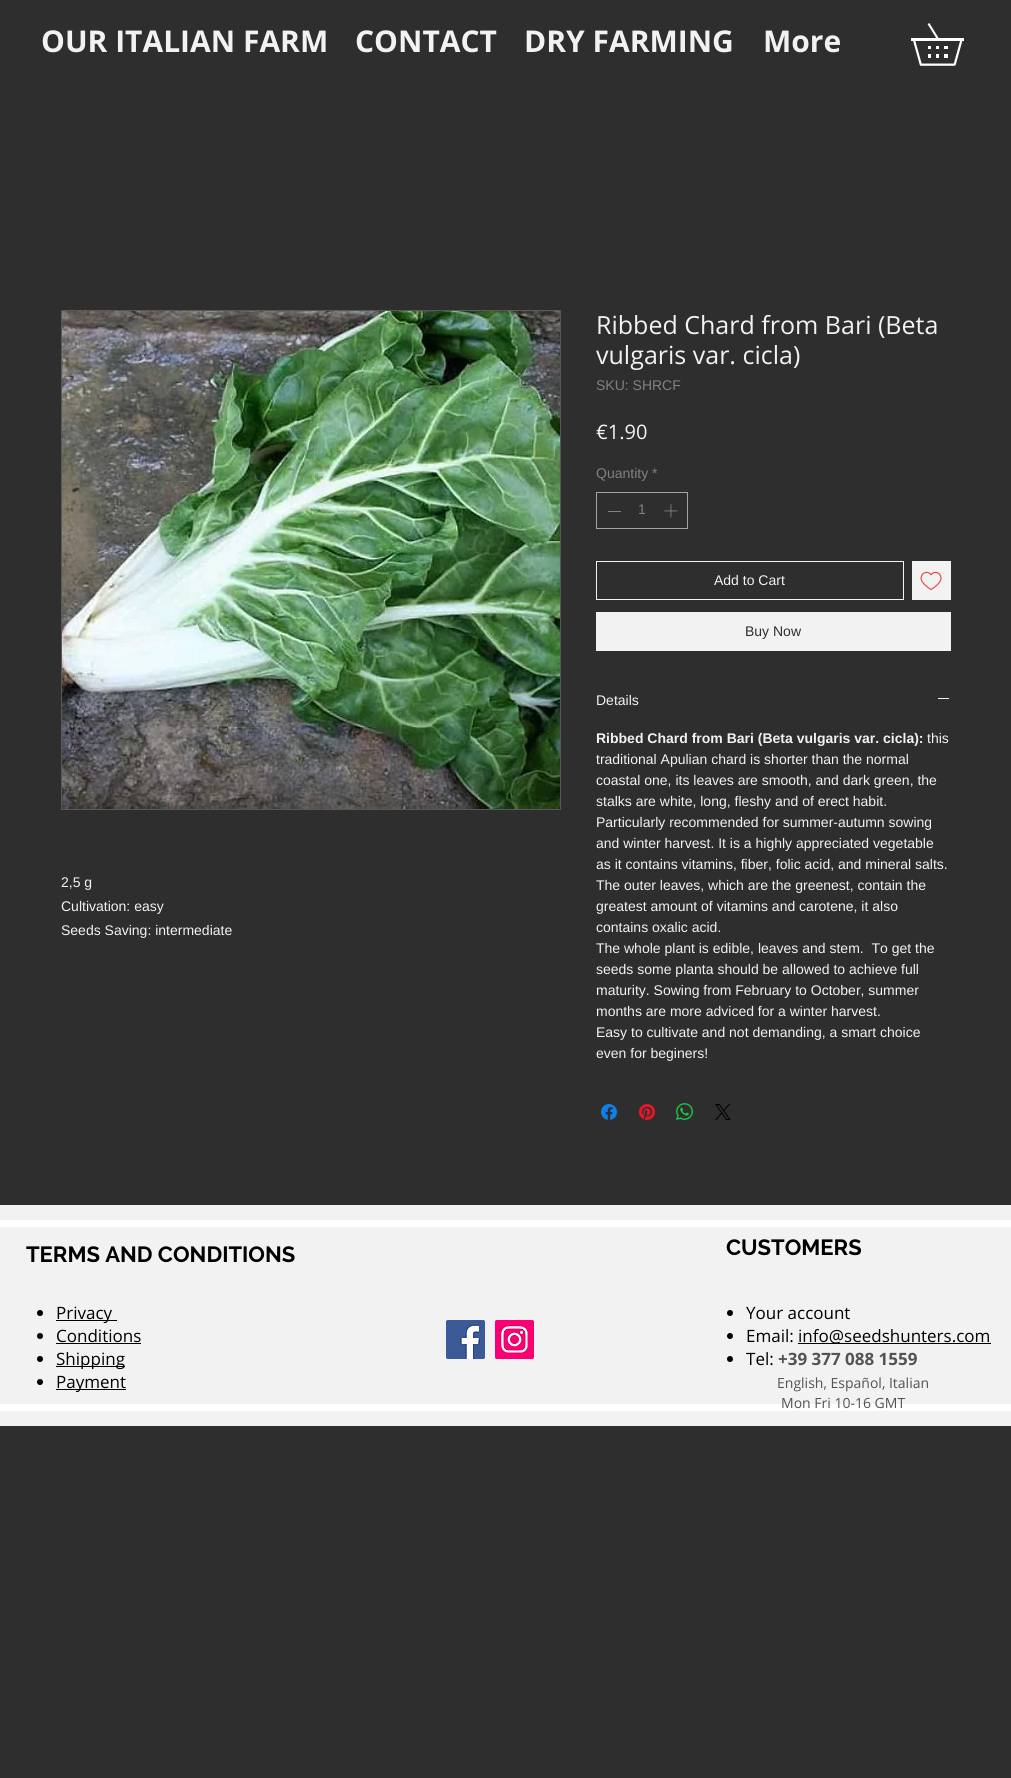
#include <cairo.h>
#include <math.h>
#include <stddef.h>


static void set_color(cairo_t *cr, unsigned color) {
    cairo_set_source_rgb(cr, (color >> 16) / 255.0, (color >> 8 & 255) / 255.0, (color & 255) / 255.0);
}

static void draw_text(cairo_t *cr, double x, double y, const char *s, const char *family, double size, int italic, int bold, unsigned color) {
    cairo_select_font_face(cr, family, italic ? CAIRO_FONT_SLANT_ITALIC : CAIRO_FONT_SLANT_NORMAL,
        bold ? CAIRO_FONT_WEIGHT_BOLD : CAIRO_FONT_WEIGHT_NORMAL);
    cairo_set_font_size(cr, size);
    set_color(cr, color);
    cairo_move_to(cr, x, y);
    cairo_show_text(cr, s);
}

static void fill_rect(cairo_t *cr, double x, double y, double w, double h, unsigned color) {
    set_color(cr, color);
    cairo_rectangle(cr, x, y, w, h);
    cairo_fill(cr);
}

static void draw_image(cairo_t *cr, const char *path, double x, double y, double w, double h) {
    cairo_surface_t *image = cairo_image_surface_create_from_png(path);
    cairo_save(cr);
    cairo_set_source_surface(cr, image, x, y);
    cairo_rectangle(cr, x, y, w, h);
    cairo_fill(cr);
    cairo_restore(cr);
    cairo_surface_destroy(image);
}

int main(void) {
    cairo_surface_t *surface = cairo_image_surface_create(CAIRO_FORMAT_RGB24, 1011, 1778);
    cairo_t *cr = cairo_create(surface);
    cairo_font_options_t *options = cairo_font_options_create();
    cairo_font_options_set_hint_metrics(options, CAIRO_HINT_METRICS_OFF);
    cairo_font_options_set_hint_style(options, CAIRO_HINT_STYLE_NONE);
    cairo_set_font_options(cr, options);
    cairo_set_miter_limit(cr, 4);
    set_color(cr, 0x2F2E2E);
    cairo_paint(cr);
    draw_text(cr, 41, 52, "OUR ITALIAN FARM", "Open Sans", 30, 0, 1, 0xF2F2F2);
    draw_text(cr, 355, 52, "CONTACT", "Open Sans", 30, 0, 1, 0xF2F2F2);
    draw_text(cr, 524, 52, "DRY FARMING", "Open Sans", 30, 0, 1, 0xF2F2F2);
    draw_text(cr, 763, 52, "More", "Open Sans", 30, 0, 1, 0xF2F2F2);
    draw_image(cr, "assets/img1.png", 911, 23, 53, 43);
    cairo_rectangle(cr, 61.5, 310.5, 499, 499);
    set_color(cr, 0x595858);
    cairo_set_line_width(cr, 1);
    cairo_stroke(cr);
    draw_image(cr, "assets/img2.png", 62, 311, 498, 498);
    draw_text(cr, 61, 887, "2,5 g", "Liberation Sans", 14, 0, 0, 0xF2F2F2);
    draw_text(cr, 61, 911, "Cultivation: easy", "Liberation Sans", 14, 0, 0, 0xF2F2F2);
    draw_text(cr, 61, 935, "Seeds Saving: intermediate", "Liberation Sans", 14, 0, 0, 0xF2F2F2);
    draw_text(cr, 596, 334, "Ribbed Chard from Bari (Beta", "Open Sans", 25, 0, 0, 0xF2F2F2);
    draw_text(cr, 596, 364, "vulgaris var. cicla)", "Open Sans", 25, 0, 0, 0xF2F2F2);
    draw_text(cr, 596, 390, "SKU: SHRCF", "Liberation Sans", 14, 0, 0, 0x828181);
    draw_text(cr, 596, 439, "€1.90", "Open Sans", 20, 0, 0, 0xF2F2F2);
    draw_text(cr, 596, 478, "Quantity *", "Liberation Sans", 14, 0, 0, 0x828181);
    cairo_rectangle(cr, 596.5, 492.5, 91, 36);
    set_color(cr, 0xA4A4A4);
    cairo_stroke(cr);
    fill_rect(cr, 608, 511, 13, 1, 0x828181);
    draw_text(cr, 638, 514, "1", "Liberation Sans", 14, 0, 0, 0x828181);
    draw_image(cr, "assets/img3.png", 664, 504, 14, 14);
    cairo_rectangle(cr, 596.5, 561.5, 307, 38);
    set_color(cr, 0xF2F2F2);
    cairo_stroke(cr);
    draw_text(cr, 714, 585, "Add to Cart", "Liberation Sans", 14, 0, 0, 0xF2F2F2);
    fill_rect(cr, 912, 561, 39, 39, 0xF2F2F2);
    draw_image(cr, "assets/img4.png", 920, 571, 22, 19);
    fill_rect(cr, 596, 612, 355, 39, 0xF2F2F2);
    draw_text(cr, 745, 636, "Buy Now", "Liberation Sans", 14, 0, 0, 0x2F2E2E);
    draw_text(cr, 596, 705, "Details", "Liberation Sans", 14, 0, 0, 0xF2F2F2);
    fill_rect(cr, 938, 698, 11, 1, 0xF2F2F2);
    draw_text(cr, 596, 743, "Ribbed Chard from Bari (Beta vulgaris var. cicla):", "Liberation Sans", 14, 0, 1, 0xF2F2F2);
    draw_text(cr, 927, 743, "this", "Liberation Sans", 14, 0, 0, 0xF2F2F2);
    draw_text(cr, 596, 764, "traditional Apulian chard is shorter than the normal", "Liberation Sans", 14, 0, 0, 0xF2F2F2);
    draw_text(cr, 596, 785, "coastal one, its leaves are smooth, and dark green, the", "Liberation Sans", 14, 0, 0, 0xF2F2F2);
    draw_text(cr, 596, 806, "stalks are white, long, fleshy and of erect habit.", "Liberation Sans", 14, 0, 0, 0xF2F2F2);
    draw_text(cr, 596, 827, "Particularly recommended for summer-autumn sowing", "Liberation Sans", 14, 0, 0, 0xF2F2F2);
    draw_text(cr, 596, 848, "and winter harvest. It is a highly appreciated vegetable", "Liberation Sans", 14, 0, 0, 0xF2F2F2);
    draw_text(cr, 596, 869, "as it contains vitamins, fiber, folic acid, and mineral salts.", "Liberation Sans", 14, 0, 0, 0xF2F2F2);
    draw_text(cr, 596, 890, "The outer leaves, which are the greenest, contain the", "Liberation Sans", 14, 0, 0, 0xF2F2F2);
    draw_text(cr, 596, 911, "greatest amount of vitamins and carotene, it also", "Liberation Sans", 14, 0, 0, 0xF2F2F2);
    draw_text(cr, 596, 932, "contains oxalic acid.", "Liberation Sans", 14, 0, 0, 0xF2F2F2);
    draw_text(cr, 596, 953, "The whole plant is edible, leaves and stem.  To get the", "Liberation Sans", 14, 0, 0, 0xF2F2F2);
    draw_text(cr, 596, 974, "seeds some planta should be allowed to achieve full", "Liberation Sans", 14, 0, 0, 0xF2F2F2);
    draw_text(cr, 596, 995, "maturity. Sowing from February to October, summer", "Liberation Sans", 14, 0, 0, 0xF2F2F2);
    draw_text(cr, 596, 1016, "months are more adviced for a winter harvest.", "Liberation Sans", 14, 0, 0, 0xF2F2F2);
    draw_text(cr, 596, 1037, "Easy to cultivate and not demanding, a smart choice", "Liberation Sans", 14, 0, 0, 0xF2F2F2);
    draw_text(cr, 596, 1058, "even for beginers!", "Liberation Sans", 14, 0, 0, 0xF2F2F2);
    draw_image(cr, "assets/img5.png", 601, 1104, 16, 16);
    draw_image(cr, "assets/img6.png", 639, 1104, 16, 16);
    draw_image(cr, "assets/img7.png", 676, 1103, 17, 17);
    draw_image(cr, "assets/img8.png", 715, 1104, 16, 16);
    fill_rect(cr, 0, 1205, 1011, 221, 0xF2F2F2);
    fill_rect(cr, 0, 1220, 1011, 7, 0xFFFFFF);
    fill_rect(cr, 0, 1404, 1011, 7, 0xFFFFFF);
    draw_text(cr, 26, 1262, "TERMS AND CONDITIONS", "Raleway", 22, 0, 1, 0x000000);
    draw_text(cr, 726, 1255, "CUSTOMERS", "Raleway", 22, 0, 1, 0x000000);
    cairo_new_path(cr);
    cairo_arc(cr, 40, 1313, 3, 0, 2 * M_PI);
    cairo_fill(cr);
    fill_rect(cr, 56, 1320, 61, 1, 0x000000);
    draw_text(cr, 56, 1319, "Privacy", "Open Sans", 17, 0, 0, 0x000000);
    cairo_new_path(cr);
    cairo_arc(cr, 40, 1336, 3, 0, 2 * M_PI);
    cairo_fill(cr);
    draw_text(cr, 56, 1342, "Conditions", "Open Sans", 17, 0, 0, 0x000000);
    fill_rect(cr, 56, 1343, 85, 1, 0x000000);
    cairo_new_path(cr);
    cairo_arc(cr, 40, 1359, 3, 0, 2 * M_PI);
    cairo_fill(cr);
    fill_rect(cr, 56, 1366, 69, 1, 0x000000);
    draw_text(cr, 56, 1365, "Shipping", "Open Sans", 17, 0, 0, 0x000000);
    cairo_new_path(cr);
    cairo_arc(cr, 40, 1382, 3, 0, 2 * M_PI);
    cairo_fill(cr);
    fill_rect(cr, 56, 1389, 70, 1, 0x000000);
    draw_text(cr, 56, 1388, "Payment", "Open Sans", 17, 0, 0, 0x000000);
    draw_image(cr, "assets/img9.png", 446, 1320, 39, 39);
    draw_image(cr, "assets/img10.png", 495, 1320, 39, 39);
    cairo_arc(cr, 730, 1313, 3, 0, 2 * M_PI);
    cairo_fill(cr);
    draw_text(cr, 746, 1319, "Your account", "Open Sans", 17, 0, 0, 0x000000);
    cairo_new_path(cr);
    cairo_arc(cr, 730, 1336, 3, 0, 2 * M_PI);
    cairo_fill(cr);
    draw_text(cr, 746, 1342, "Email:", "Open Sans", 17, 0, 0, 0x000000);
    fill_rect(cr, 798, 1343, 193, 1, 0x000000);
    draw_text(cr, 798, 1342, "info@seedshunters.com", "Open Sans", 17, 0, 0, 0x000000);
    cairo_new_path(cr);
    cairo_arc(cr, 730, 1359, 3, 0, 2 * M_PI);
    cairo_fill(cr);
    draw_text(cr, 746, 1365, "Tel:", "Open Sans", 17, 0, 0, 0x000000);
    draw_text(cr, 778, 1365, "+39 377 088 1559", "Open Sans", 17, 0, 1, 0x535353);
    draw_text(cr, 777, 1388, "English, Español, Italian", "Open Sans", 14, 0, 0, 0x535353);
    draw_text(cr, 781, 1408, "Mon Fri 10-16 GMT", "Open Sans", 14, 0, 0, 0x535353);
    cairo_surface_write_to_png(surface, "output.png");
    cairo_font_options_destroy(options);
    cairo_destroy(cr);
    cairo_surface_destroy(surface);
    return 0;
}
